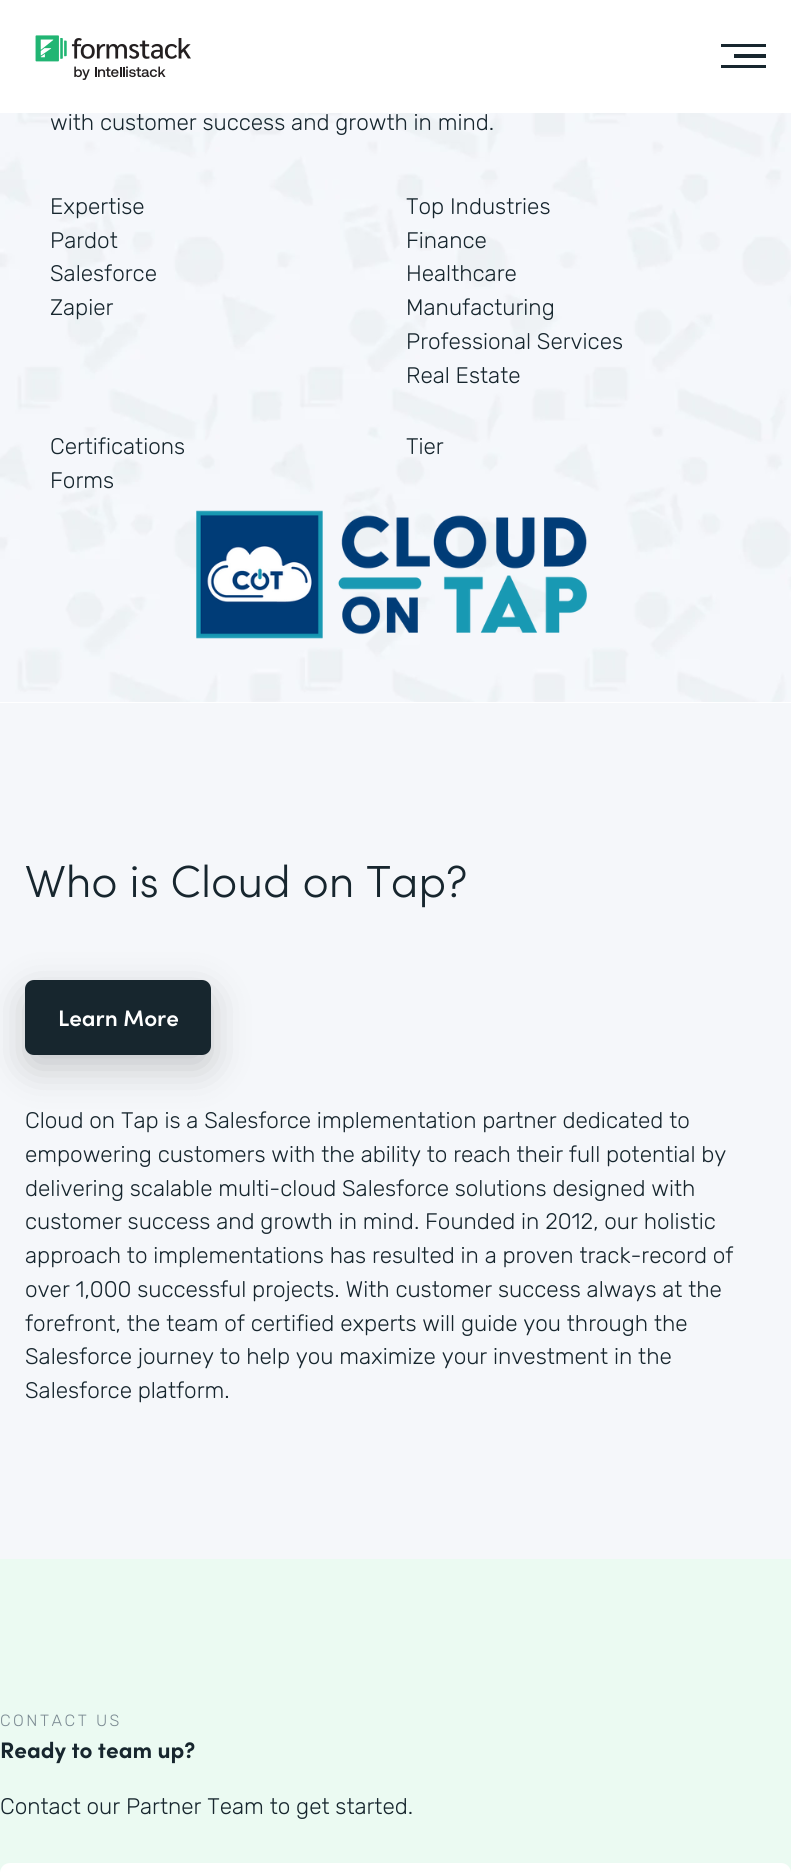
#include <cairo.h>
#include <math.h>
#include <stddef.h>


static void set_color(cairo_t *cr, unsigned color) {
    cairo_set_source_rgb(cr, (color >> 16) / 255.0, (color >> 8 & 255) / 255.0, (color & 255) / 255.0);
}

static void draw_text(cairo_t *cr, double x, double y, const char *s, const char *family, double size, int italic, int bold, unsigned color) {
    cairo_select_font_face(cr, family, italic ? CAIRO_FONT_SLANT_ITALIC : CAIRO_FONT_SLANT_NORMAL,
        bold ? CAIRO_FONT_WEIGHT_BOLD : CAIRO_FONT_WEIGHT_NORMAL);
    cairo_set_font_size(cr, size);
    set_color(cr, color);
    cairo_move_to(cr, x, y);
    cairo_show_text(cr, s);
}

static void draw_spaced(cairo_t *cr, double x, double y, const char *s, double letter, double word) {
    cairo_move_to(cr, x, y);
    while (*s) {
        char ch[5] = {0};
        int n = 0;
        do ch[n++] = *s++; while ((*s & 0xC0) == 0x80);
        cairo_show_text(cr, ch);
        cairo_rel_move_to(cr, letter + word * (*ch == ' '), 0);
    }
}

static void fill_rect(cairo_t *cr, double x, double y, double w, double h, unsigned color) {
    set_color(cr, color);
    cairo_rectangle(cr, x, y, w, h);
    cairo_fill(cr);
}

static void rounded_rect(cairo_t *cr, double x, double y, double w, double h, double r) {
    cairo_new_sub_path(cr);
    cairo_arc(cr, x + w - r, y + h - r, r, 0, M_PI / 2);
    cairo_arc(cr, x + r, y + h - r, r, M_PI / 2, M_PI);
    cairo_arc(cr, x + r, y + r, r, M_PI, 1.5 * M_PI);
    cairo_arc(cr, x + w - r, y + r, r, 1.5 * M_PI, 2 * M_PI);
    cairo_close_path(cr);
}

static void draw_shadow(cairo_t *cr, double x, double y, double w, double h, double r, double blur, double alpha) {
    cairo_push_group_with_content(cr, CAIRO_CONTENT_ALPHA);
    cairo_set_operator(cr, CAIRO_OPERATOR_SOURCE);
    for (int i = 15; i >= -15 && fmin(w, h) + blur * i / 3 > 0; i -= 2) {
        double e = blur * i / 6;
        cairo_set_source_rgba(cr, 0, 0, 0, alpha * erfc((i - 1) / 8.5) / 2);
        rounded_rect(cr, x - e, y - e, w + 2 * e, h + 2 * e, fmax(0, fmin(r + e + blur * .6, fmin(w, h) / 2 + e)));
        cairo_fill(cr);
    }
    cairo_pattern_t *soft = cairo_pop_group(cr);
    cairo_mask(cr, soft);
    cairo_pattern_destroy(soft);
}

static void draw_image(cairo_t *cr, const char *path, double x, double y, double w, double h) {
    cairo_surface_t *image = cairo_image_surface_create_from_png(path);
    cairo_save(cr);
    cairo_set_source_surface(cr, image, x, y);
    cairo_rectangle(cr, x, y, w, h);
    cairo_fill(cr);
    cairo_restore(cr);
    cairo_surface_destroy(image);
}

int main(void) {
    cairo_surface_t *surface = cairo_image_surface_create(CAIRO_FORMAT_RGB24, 791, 1872);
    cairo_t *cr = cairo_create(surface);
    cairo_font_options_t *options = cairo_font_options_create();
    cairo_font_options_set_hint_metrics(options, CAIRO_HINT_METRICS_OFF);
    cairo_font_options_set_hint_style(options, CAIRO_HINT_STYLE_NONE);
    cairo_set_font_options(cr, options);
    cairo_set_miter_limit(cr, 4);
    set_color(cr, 0xFFFFFF);
    cairo_paint(cr);
    draw_image(cr, "assets/img1.png", 35, 35, 156, 45);
    set_color(cr, 0x17262E);
    cairo_set_fill_rule(cr, CAIRO_FILL_RULE_EVEN_ODD);
    cairo_new_path(cr);
    cairo_move_to(cr, 766, 65);
    cairo_line_to(cr, 766, 68);
    cairo_line_to(cr, 721, 68);
    cairo_line_to(cr, 721, 65);
    cairo_close_path(cr);
    cairo_move_to(cr, 766, 54);
    cairo_line_to(cr, 766, 58);
    cairo_line_to(cr, 734, 58);
    cairo_line_to(cr, 734, 54);
    cairo_close_path(cr);
    cairo_move_to(cr, 766, 44);
    cairo_line_to(cr, 766, 47);
    cairo_line_to(cr, 721, 47);
    cairo_line_to(cr, 721, 44);
    cairo_close_path(cr);
    cairo_fill(cr);
    draw_image(cr, "assets/img2.png", 0, 113, 791, 589);
    draw_text(cr, 50, 130, "with customer success and growth in mind.", "Rubik Light", 22.5, 0, 0, 0x17262E);
    draw_text(cr, 50, 214, "Expertise", "Rubik Light", 22.5, 0, 0, 0x17262E);
    draw_text(cr, 50, 248, "Pardot", "Rubik Light", 22.5, 0, 0, 0x17262E);
    draw_text(cr, 50, 281, "Salesforce", "Rubik Light", 22.5, 0, 0, 0x17262E);
    draw_text(cr, 50, 315, "Zapier", "Rubik Light", 22.5, 0, 0, 0x17262E);
    draw_text(cr, 406, 214, "Top Industries", "Rubik Light", 22.5, 0, 0, 0x17262E);
    draw_text(cr, 406, 248, "Finance", "Rubik Light", 22.5, 0, 0, 0x17262E);
    draw_text(cr, 406, 281, "Healthcare", "Rubik Light", 22.5, 0, 0, 0x17262E);
    draw_text(cr, 406, 315, "Manufacturing", "Rubik Light", 22.5, 0, 0, 0x17262E);
    draw_text(cr, 406, 349, "Professional Services", "Rubik Light", 22.5, 0, 0, 0x17262E);
    draw_text(cr, 406, 383, "Real Estate", "Rubik Light", 22.5, 0, 0, 0x17262E);
    draw_text(cr, 50, 454, "Certifications", "Rubik Light", 22.5, 0, 0, 0x17262E);
    draw_text(cr, 50, 488, "Forms", "Rubik Light", 22.5, 0, 0, 0x17262E);
    draw_text(cr, 406, 454, "Tier", "Rubik Light", 22.5, 0, 0, 0x17262E);
    draw_image(cr, "assets/img3.png", 196, 510, 391, 129);
    fill_rect(cr, 0, 703, 791, 856, 0xF5F7FA);
    draw_text(cr, 25, 897, "Who is Cloud on Tap?", "Sofia Light", 45, 0, 0, 0x17262E);
    set_color(cr, 0x000000);
    draw_shadow(cr, 25, 993, 186, 75, 9, 19, 0.2);
    set_color(cr, 0x17262E);
    rounded_rect(cr, 25, 980, 186, 75, 9);
    cairo_fill(cr);
    draw_text(cr, 58, 1026, "Learn More", "Sofia SemiBold", 22.5, 0, 0, 0xFFFFFF);
    draw_text(cr, 25, 1128, "Cloud on Tap is a Salesforce implementation partner dedicated to", "Rubik Light", 22.5, 0, 0, 0x17262E);
    draw_text(cr, 25, 1162, "empowering customers with the ability to reach their full potential by", "Rubik Light", 22.5, 0, 0, 0x17262E);
    draw_text(cr, 25, 1196, "delivering scalable multi-cloud Salesforce solutions designed with", "Rubik Light", 22.5, 0, 0, 0x17262E);
    draw_text(cr, 25, 1229, "customer success and growth in mind. Founded in 2012, our holistic", "Rubik Light", 22.5, 0, 0, 0x17262E);
    draw_text(cr, 25, 1263, "approach to implementations has resulted in a proven track-record of", "Rubik Light", 22.5, 0, 0, 0x17262E);
    draw_text(cr, 25, 1297, "over 1,000 successful projects. With customer success always at the", "Rubik Light", 22.5, 0, 0, 0x17262E);
    draw_text(cr, 25, 1331, "forefront, the team of certified experts will guide you through the", "Rubik Light", 22.5, 0, 0, 0x17262E);
    draw_text(cr, 25, 1364, "Salesforce journey to help you maximize your investment in the", "Rubik Light", 22.5, 0, 0, 0x17262E);
    draw_text(cr, 25, 1398, "Salesforce platform.", "Rubik Light", 22.5, 0, 0, 0x17262E);
    fill_rect(cr, 0, 1559, 791, 313, 0xEBFAF2);
    cairo_set_font_size(cr, 16.25);
    set_color(cr, 0x7D8C94);
    draw_spaced(cr, 0, 1726, "CONTACT US", 2.5, 0);
    draw_text(cr, 0, 1758, "Ready to team up?", "Sofia", 22.5, 0, 1, 0x17262E);
    draw_text(cr, 0, 1814, "Contact our Partner Team to get started.", "Rubik Light", 22.5, 0, 0, 0x17262E);
    set_color(cr, 0xFFFFFF);
    rounded_rect(cr, 0, 1863, 791, 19, 10);
    cairo_fill(cr);
    cairo_surface_write_to_png(surface, "output.png");
    cairo_font_options_destroy(options);
    cairo_destroy(cr);
    cairo_surface_destroy(surface);
    return 0;
}
